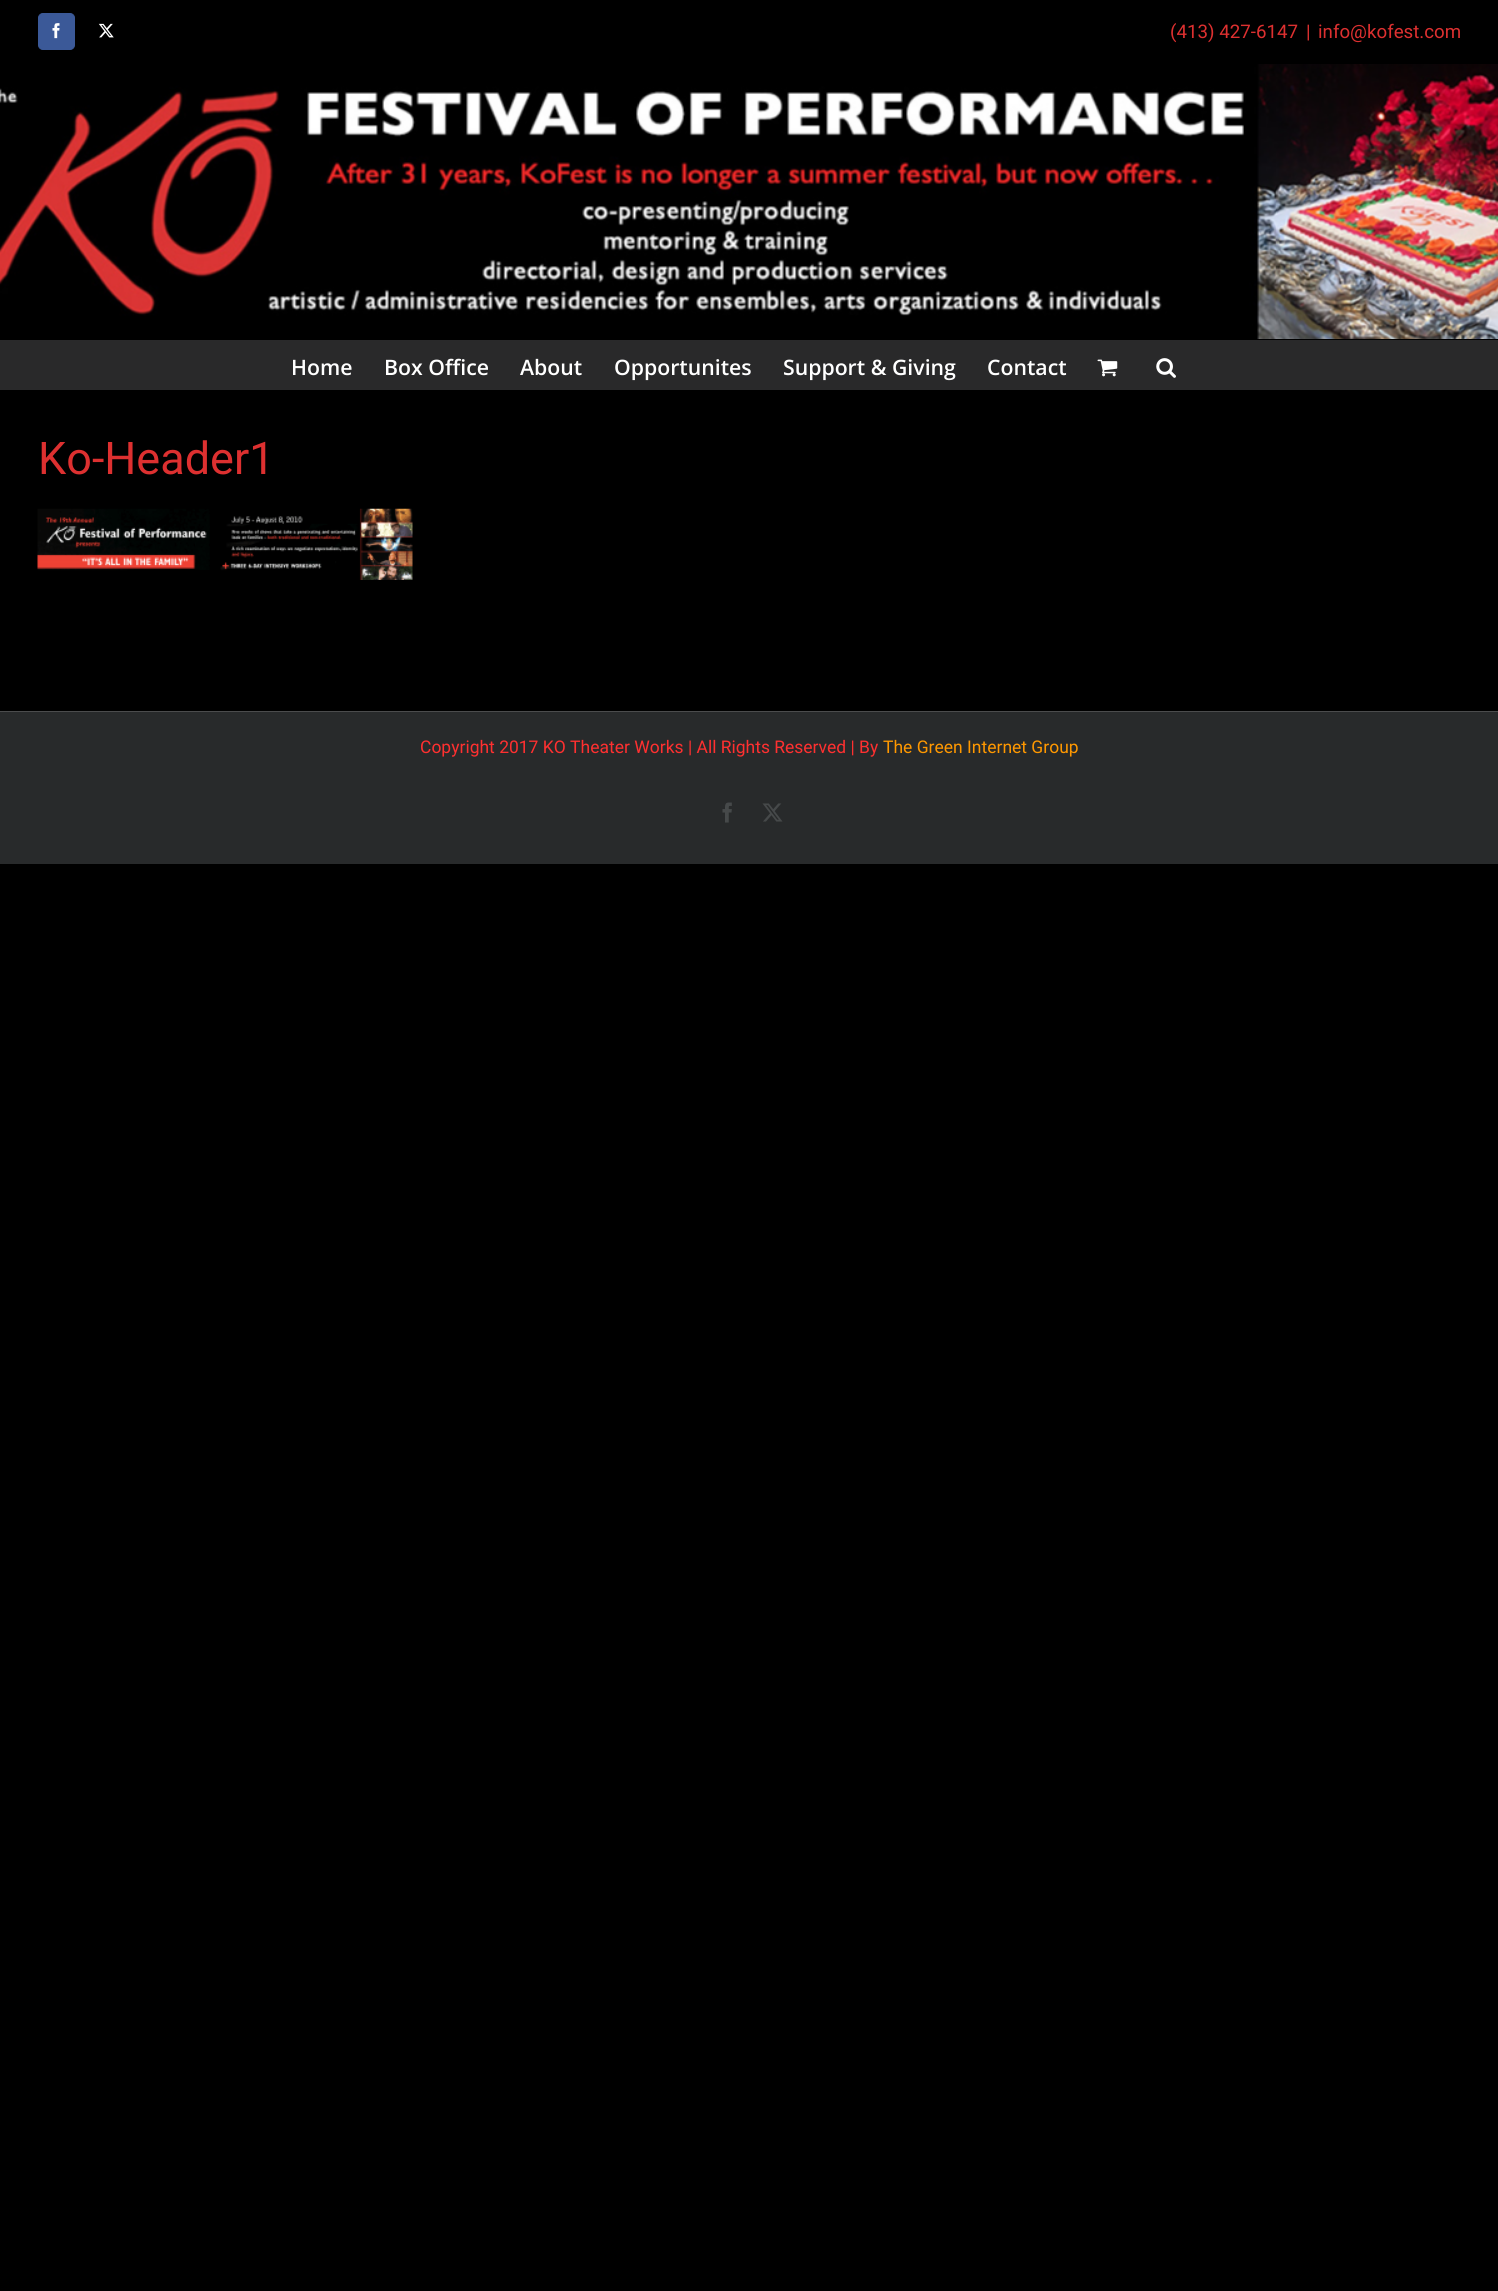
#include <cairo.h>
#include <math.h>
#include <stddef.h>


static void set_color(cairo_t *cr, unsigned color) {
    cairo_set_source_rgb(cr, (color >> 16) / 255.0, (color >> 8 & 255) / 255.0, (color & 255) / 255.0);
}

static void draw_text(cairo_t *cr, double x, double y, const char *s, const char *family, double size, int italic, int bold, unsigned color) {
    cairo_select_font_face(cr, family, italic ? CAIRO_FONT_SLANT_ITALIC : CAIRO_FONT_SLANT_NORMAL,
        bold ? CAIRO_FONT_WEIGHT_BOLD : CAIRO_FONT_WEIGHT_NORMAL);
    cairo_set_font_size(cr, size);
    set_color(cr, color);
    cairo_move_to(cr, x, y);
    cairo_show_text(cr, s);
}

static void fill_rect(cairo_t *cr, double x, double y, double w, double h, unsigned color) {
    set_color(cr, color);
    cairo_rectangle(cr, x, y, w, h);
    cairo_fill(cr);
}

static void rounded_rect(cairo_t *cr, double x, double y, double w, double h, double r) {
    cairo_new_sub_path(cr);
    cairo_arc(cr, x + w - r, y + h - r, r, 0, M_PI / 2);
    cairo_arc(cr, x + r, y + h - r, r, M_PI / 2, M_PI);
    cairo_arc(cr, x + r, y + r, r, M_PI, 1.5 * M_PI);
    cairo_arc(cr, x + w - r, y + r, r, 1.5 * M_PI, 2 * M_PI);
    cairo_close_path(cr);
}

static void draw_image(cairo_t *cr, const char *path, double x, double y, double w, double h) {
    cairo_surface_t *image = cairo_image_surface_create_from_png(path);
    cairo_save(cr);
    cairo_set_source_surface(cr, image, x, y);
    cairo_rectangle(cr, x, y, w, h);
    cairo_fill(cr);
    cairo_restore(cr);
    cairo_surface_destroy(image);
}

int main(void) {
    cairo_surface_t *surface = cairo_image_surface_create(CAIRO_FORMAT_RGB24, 1498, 2291);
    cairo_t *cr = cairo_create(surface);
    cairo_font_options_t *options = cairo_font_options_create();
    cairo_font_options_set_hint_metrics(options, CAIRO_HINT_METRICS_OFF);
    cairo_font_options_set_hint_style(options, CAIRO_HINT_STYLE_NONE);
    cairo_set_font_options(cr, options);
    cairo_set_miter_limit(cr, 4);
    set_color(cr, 0x000000);
    cairo_paint(cr);
    set_color(cr, 0x3B5998);
    rounded_rect(cr, 38.5, 13.5, 36, 36, 4.5);
    cairo_fill_preserve(cr);
    cairo_set_line_width(cr, 1);
    cairo_stroke(cr);
    draw_image(cr, "assets/img1.png", 52, 23, 8, 16);
    draw_image(cr, "assets/img2.png", 98, 23, 16, 15);
    draw_text(cr, 1170, 38, "(413) 427-6147", "Roboto", 18.75, 0, 0, 0xDD3030);
    draw_text(cr, 1306, 38, "|", "Roboto", 18.75, 0, 0, 0xDD3030);
    draw_text(cr, 1318, 38, "info@kofest.com", "Roboto", 18.75, 0, 0, 0xDD3030);
    draw_image(cr, "assets/img3.png", 0, 64, 1498, 275);
    fill_rect(cr, 0, 340, 1498, 50, 0x29292A);
    draw_text(cr, 291, 375, "Home", "Open Sans SemiBold", 21.25, 0, 0, 0xFFFFFF);
    draw_text(cr, 384, 375, "Box Office", "Open Sans SemiBold", 21.25, 0, 0, 0xFFFFFF);
    draw_text(cr, 520, 375, "About", "Open Sans SemiBold", 21.25, 0, 0, 0xFFFFFF);
    draw_text(cr, 614, 375, "Opportunites", "Open Sans SemiBold", 21.25, 0, 0, 0xFFFFFF);
    draw_text(cr, 783, 375, "Support & Giving", "Open Sans SemiBold", 21.25, 0, 0, 0xFFFFFF);
    draw_text(cr, 987, 375, "Contact", "Open Sans SemiBold", 21.25, 0, 0, 0xFFFFFF);
    draw_image(cr, "assets/img4.png", 1097, 359, 21, 18);
    draw_image(cr, "assets/img5.png", 1156, 358, 20, 20);
    draw_text(cr, 38, 474, "Ko-Header1", "Roboto", 45, 0, 0, 0xDD3030);
    draw_image(cr, "assets/img6.png", 37, 508, 376, 72);
    fill_rect(cr, 0, 712, 1498, 152, 0x282A2B);
    fill_rect(cr, 0, 711, 1498, 1, 0x4B4C4D);
    draw_text(cr, 420, 753, "Copyright 2017 KO Theater Works | All Rights Reserved | By", "Roboto", 17.5, 0, 0, 0xFF3030);
    draw_text(cr, 883, 753, "The Green Internet Group", "Roboto", 17.5, 0, 0, 0xFF9800);
    draw_image(cr, "assets/img7.png", 722, 802, 10, 21);
    draw_image(cr, "assets/img8.png", 762, 803, 21, 19);
    cairo_surface_write_to_png(surface, "output.png");
    cairo_font_options_destroy(options);
    cairo_destroy(cr);
    cairo_surface_destroy(surface);
    return 0;
}
